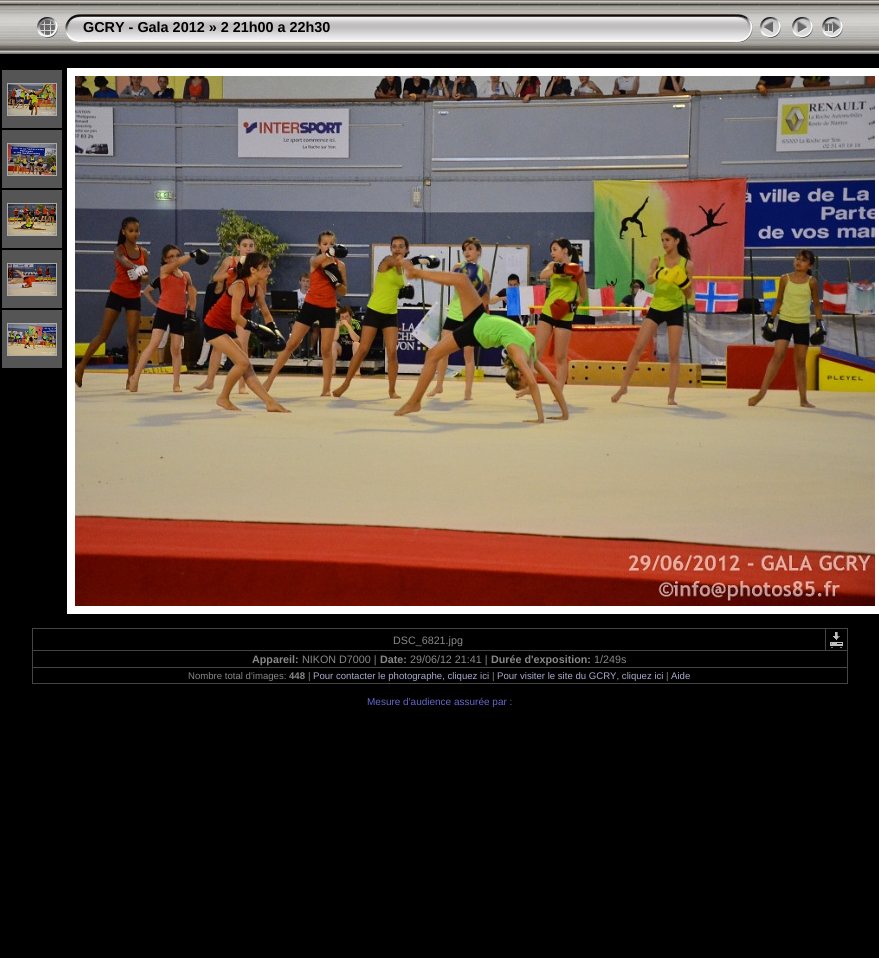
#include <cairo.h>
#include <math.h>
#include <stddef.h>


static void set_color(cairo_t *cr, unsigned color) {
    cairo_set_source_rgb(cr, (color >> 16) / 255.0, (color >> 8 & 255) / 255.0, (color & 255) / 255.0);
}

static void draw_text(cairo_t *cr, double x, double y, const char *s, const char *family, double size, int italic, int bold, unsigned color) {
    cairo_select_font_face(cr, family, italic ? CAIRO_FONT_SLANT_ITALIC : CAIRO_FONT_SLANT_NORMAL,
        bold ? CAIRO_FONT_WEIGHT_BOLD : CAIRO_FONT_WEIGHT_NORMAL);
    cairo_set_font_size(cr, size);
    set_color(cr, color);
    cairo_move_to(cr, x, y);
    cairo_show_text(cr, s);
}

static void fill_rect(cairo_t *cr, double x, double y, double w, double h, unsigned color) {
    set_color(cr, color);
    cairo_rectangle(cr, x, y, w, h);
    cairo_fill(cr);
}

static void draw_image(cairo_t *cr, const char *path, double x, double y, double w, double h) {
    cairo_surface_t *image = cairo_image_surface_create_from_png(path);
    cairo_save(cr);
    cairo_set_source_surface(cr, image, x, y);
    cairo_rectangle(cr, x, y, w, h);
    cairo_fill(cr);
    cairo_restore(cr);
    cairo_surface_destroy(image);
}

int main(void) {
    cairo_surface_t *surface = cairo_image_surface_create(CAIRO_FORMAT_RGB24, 879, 958);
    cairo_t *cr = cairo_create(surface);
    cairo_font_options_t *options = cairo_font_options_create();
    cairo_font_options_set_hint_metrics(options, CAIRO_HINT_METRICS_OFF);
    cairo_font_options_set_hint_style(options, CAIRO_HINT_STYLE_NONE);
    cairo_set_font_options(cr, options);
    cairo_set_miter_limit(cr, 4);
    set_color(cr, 0x000000);
    cairo_paint(cr);
    draw_image(cr, "assets/img1.png", 0, 0, 879, 54);
    draw_image(cr, "assets/img2.png", 36, 17, 22, 21);
    draw_image(cr, "assets/img3.png", 65, 14, 18, 29);
    draw_image(cr, "assets/img4.png", 83, 14, 652, 29);
    draw_text(cr, 83, 32, "GCRY - Gala 2012 » 2 21h00 a 22h30", "Liberation Sans", 14.4, 0, 1, 0x000000);
    draw_image(cr, "assets/img5.png", 735, 14, 18, 29);
    draw_image(cr, "assets/img6.png", 759, 17, 22, 21);
    draw_image(cr, "assets/img7.png", 791, 17, 22, 21);
    draw_image(cr, "assets/img8.png", 821, 17, 22, 21);
    fill_rect(cr, 2, 70, 60, 58, 0x555555);
    cairo_rectangle(cr, 7.5, 83.5, 49, 32);
    set_color(cr, 0xAAAAAA);
    cairo_set_line_width(cr, 1);
    cairo_stroke(cr);
    draw_image(cr, "assets/img9.png", 8, 84, 48, 31);
    fill_rect(cr, 2, 130, 60, 58, 0x555555);
    cairo_rectangle(cr, 7.5, 143.5, 49, 32);
    set_color(cr, 0xAAAAAA);
    cairo_stroke(cr);
    draw_image(cr, "assets/img10.png", 8, 144, 48, 31);
    fill_rect(cr, 2, 190, 60, 58, 0x555555);
    cairo_rectangle(cr, 7.5, 203.5, 49, 32);
    set_color(cr, 0xAAAAAA);
    cairo_stroke(cr);
    draw_image(cr, "assets/img11.png", 8, 204, 48, 31);
    fill_rect(cr, 2, 250, 60, 58, 0x555555);
    cairo_rectangle(cr, 7.5, 263.5, 49, 32);
    set_color(cr, 0xAAAAAA);
    cairo_stroke(cr);
    draw_image(cr, "assets/img12.png", 8, 264, 48, 31);
    fill_rect(cr, 2, 310, 60, 58, 0x555555);
    cairo_rectangle(cr, 7.5, 323.5, 49, 32);
    set_color(cr, 0xAAAAAA);
    cairo_stroke(cr);
    draw_image(cr, "assets/img13.png", 8, 324, 48, 31);
    cairo_rectangle(cr, 71, 72, 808, 538);
    set_color(cr, 0xFFFFFF);
    cairo_set_line_width(cr, 8);
    cairo_stroke(cr);
    draw_image(cr, "assets/img14.png", 75, 76, 800, 530);
    fill_rect(cr, 32, 628, 816, 1, 0x444444);
    fill_rect(cr, 847, 628, 1, 56, 0x444444);
    fill_rect(cr, 32, 683, 816, 1, 0x444444);
    fill_rect(cr, 32, 628, 1, 56, 0x444444);
    draw_text(cr, 393, 644, "DSC_6821.jpg", "Liberation Sans", 10.75, 0, 0, 0x888888);
    fill_rect(cr, 32, 650, 816, 1, 0x444444);
    fill_rect(cr, 825, 628, 1, 23, 0x444444);
    draw_image(cr, "assets/img15.png", 830, 632, 13, 16);
    draw_text(cr, 252, 663, "Appareil:", "Liberation Sans", 10.75, 0, 1, 0x888888);
    draw_text(cr, 302, 663, "NIKON D7000 |", "Liberation Sans", 10.75, 0, 0, 0x888888);
    draw_text(cr, 380, 663, "Date:", "Liberation Sans", 10.75, 0, 1, 0x888888);
    draw_text(cr, 410, 663, "29/06/12 21:41 |", "Liberation Sans", 10.75, 0, 0, 0x888888);
    draw_text(cr, 491, 663, "Durée d'exposition:", "Liberation Sans", 10.75, 0, 1, 0x888888);
    draw_text(cr, 594, 663, "1/249s", "Liberation Sans", 10.75, 0, 0, 0x888888);
    fill_rect(cr, 32, 667, 816, 1, 0x444444);
    draw_text(cr, 188, 679, "Nombre total d'images:", "Liberation Sans", 9.6, 0, 0, 0x888888);
    draw_text(cr, 289, 679, "448", "Liberation Sans", 9.6, 0, 1, 0x888888);
    draw_text(cr, 308, 679, "|", "Liberation Sans", 9.6, 0, 0, 0x888888);
    draw_text(cr, 313, 679, "Pour contacter le photographe, cliquez ici", "Liberation Sans", 9.6, 0, 0, 0xAAAACC);
    draw_text(cr, 492, 679, "|", "Liberation Sans", 9.6, 0, 0, 0x888888);
    draw_text(cr, 497, 679, "Pour visiter le site du GCRY, cliquez ici", "Liberation Sans", 9.6, 0, 0, 0xAAAACC);
    draw_text(cr, 666, 679, "|", "Liberation Sans", 9.6, 0, 0, 0x888888);
    draw_text(cr, 671, 679, "Aide", "Liberation Sans", 9.6, 0, 0, 0xAAAACC);
    draw_text(cr, 367, 705, "Mesure d'audience assurée par :", "Liberation Sans", 10, 0, 0, 0x6666CC);
    cairo_surface_write_to_png(surface, "output.png");
    cairo_font_options_destroy(options);
    cairo_destroy(cr);
    cairo_surface_destroy(surface);
    return 0;
}
